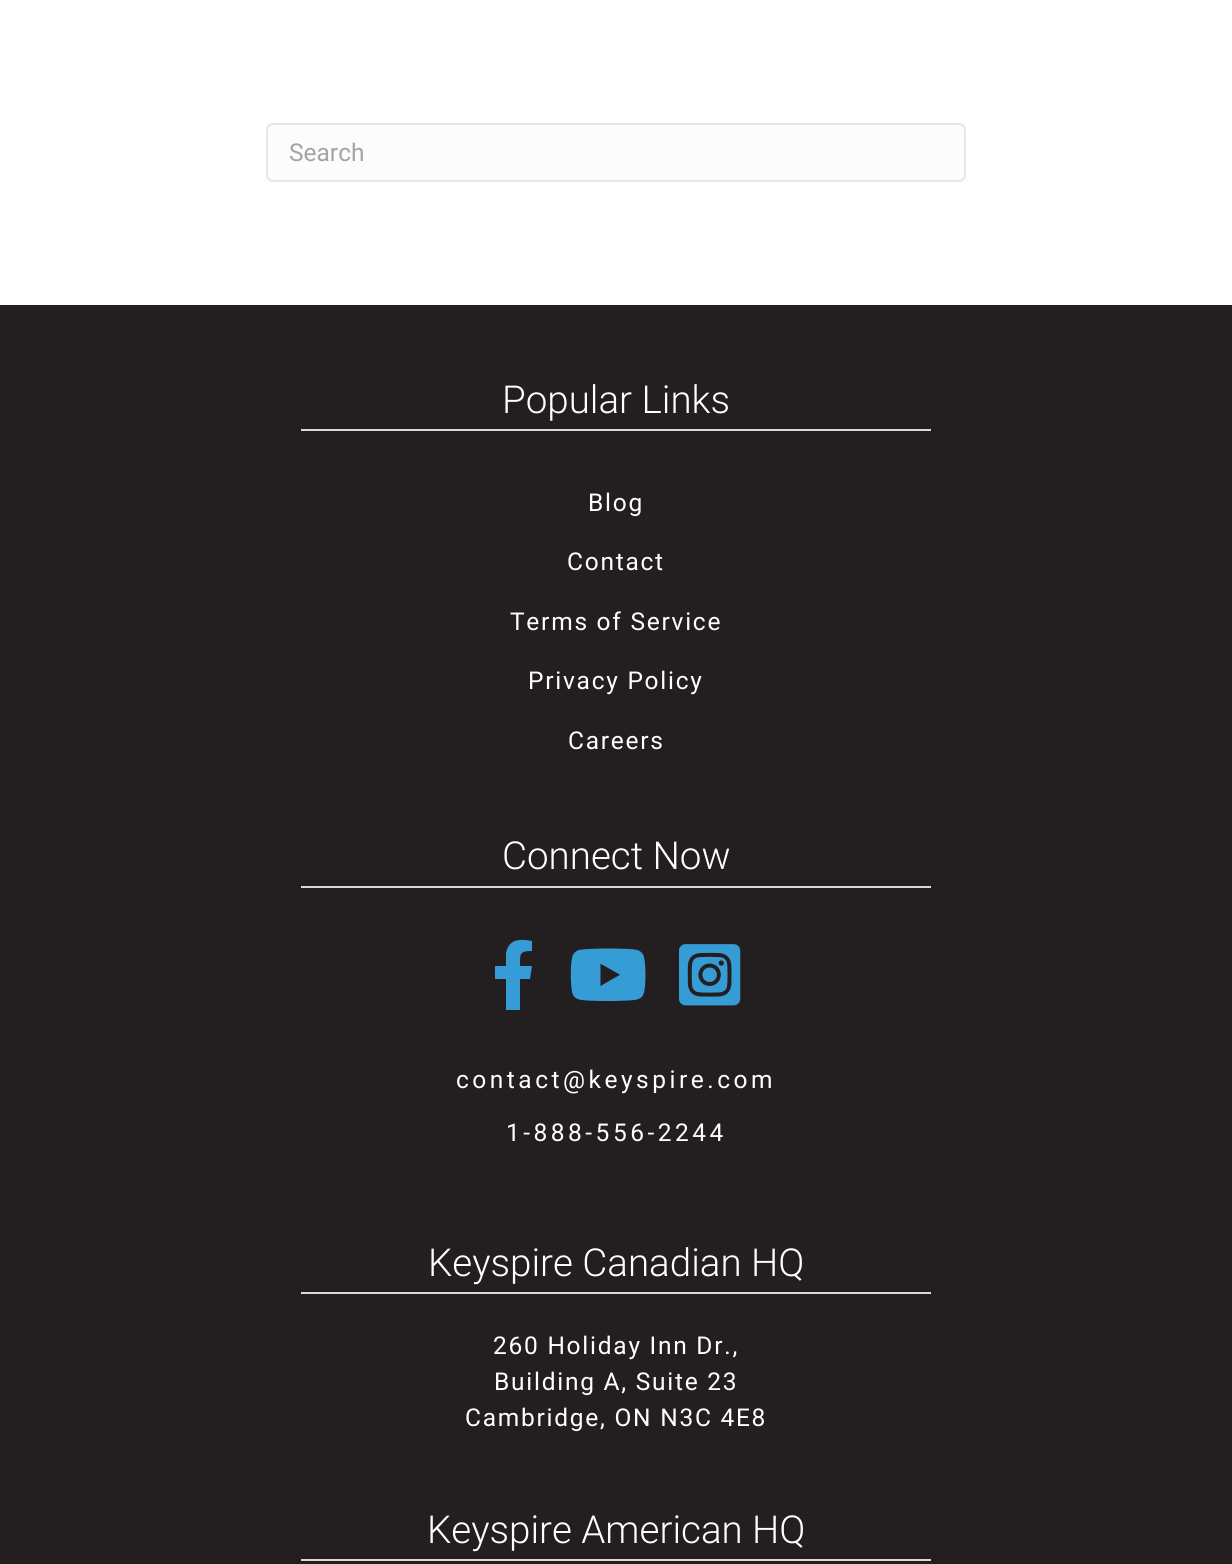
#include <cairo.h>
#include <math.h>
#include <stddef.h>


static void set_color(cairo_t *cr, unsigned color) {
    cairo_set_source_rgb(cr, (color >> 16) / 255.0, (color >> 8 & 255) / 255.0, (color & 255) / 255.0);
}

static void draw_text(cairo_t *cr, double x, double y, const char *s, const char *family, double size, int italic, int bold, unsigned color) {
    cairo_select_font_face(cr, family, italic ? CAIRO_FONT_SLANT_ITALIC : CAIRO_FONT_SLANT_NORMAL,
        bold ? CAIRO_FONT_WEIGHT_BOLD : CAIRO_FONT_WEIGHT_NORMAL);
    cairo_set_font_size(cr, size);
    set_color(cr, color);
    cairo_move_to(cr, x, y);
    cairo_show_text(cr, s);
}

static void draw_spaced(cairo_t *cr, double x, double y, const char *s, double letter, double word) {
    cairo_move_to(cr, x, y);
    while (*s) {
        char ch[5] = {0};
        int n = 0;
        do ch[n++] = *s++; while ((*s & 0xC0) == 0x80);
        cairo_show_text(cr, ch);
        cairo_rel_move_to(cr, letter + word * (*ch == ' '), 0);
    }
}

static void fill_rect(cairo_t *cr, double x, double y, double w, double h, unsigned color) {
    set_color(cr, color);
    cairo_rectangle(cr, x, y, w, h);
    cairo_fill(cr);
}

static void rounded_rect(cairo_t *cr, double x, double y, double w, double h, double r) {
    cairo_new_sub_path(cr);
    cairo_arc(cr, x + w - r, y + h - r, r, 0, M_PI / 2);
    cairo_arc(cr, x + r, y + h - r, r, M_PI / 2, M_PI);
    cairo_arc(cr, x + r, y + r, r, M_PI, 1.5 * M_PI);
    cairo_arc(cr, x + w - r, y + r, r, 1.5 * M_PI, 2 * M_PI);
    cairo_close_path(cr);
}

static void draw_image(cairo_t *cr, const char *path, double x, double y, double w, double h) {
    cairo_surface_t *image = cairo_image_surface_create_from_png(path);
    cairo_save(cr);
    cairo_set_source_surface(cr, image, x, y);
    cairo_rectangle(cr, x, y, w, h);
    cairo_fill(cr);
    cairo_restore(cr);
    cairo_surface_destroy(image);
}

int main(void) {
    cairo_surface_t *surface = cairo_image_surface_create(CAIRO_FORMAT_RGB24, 1232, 1564);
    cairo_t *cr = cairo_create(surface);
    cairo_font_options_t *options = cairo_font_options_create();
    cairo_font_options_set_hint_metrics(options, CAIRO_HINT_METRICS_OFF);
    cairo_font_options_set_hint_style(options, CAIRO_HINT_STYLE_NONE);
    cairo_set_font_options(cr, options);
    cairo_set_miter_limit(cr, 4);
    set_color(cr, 0xFFFFFF);
    cairo_paint(cr);
    set_color(cr, 0xFCFCFC);
    rounded_rect(cr, 267, 124, 698, 57, 6);
    cairo_fill_preserve(cr);
    set_color(cr, 0xE6E6E6);
    cairo_stroke(cr);
    draw_text(cr, 289, 161, "Search", "Roboto", 24.5, 0, 0, 0xA5A4A4);
    fill_rect(cr, 0, 305, 1232, 1259, 0x231F20);
    fill_rect(cr, 301, 429, 630, 2, 0xD9D9D9);
    draw_text(cr, 502, 413, "Popular Links", "Roboto Light", 38.5, 0, 0, 0xFFFFFF);
    cairo_select_font_face(cr, "Roboto", CAIRO_FONT_SLANT_NORMAL, CAIRO_FONT_WEIGHT_NORMAL);
    cairo_set_font_size(cr, 24.5);
    draw_spaced(cr, 588, 511, "Blog", 1.75, 0);
    draw_spaced(cr, 567, 570, "Contact", 1.75, 0);
    draw_spaced(cr, 510, 630, "Terms of Service", 1.75, 0);
    draw_spaced(cr, 528, 689, "Privacy Policy", 1.75, 0);
    draw_spaced(cr, 568, 749, "Careers", 1.75, 0);
    fill_rect(cr, 301, 886, 630, 2, 0xD9D9D9);
    draw_text(cr, 502, 869, "Connect Now", "Roboto Light", 38.5, 0, 0, 0xFFFFFF);
    set_color(cr, 0x369CD6);
    cairo_new_path(cr);
    cairo_move_to(cr, 530, 979);
    cairo_line_to(cr, 520, 979);
    cairo_line_to(cr, 520, 1010);
    cairo_line_to(cr, 506, 1010);
    cairo_line_to(cr, 506, 979);
    cairo_line_to(cr, 495, 979);
    cairo_line_to(cr, 495, 966);
    cairo_line_to(cr, 506, 966);
    cairo_line_to(cr, 506, 953);
    cairo_curve_to(cr, 509, 938, 521, 939, 532, 941);
    cairo_line_to(cr, 532, 951);
    cairo_curve_to(cr, 519, 951, 520, 954, 520, 966);
    cairo_line_to(cr, 532, 966);
    cairo_close_path(cr);
    cairo_fill(cr);
    draw_image(cr, "assets/img1.png", 570, 948, 76, 53);
    draw_image(cr, "assets/img2.png", 679, 944, 62, 62);
    cairo_select_font_face(cr, "Roboto", CAIRO_FONT_SLANT_NORMAL, CAIRO_FONT_WEIGHT_NORMAL);
    cairo_set_font_size(cr, 24.5);
    set_color(cr, 0xFFFFFF);
    draw_spaced(cr, 456, 1088, "contact@keyspire.com", 3.5, 0);
    draw_spaced(cr, 506, 1141, "1-888-556-2244", 3.5, 0);
    fill_rect(cr, 301, 1292, 630, 2, 0xD9D9D9);
    draw_text(cr, 428, 1276, "Keyspire Canadian HQ", "Roboto Light", 38.5, 0, 0, 0xFFFFFF);
    cairo_select_font_face(cr, "Roboto", CAIRO_FONT_SLANT_NORMAL, CAIRO_FONT_WEIGHT_NORMAL);
    cairo_set_font_size(cr, 24.5);
    draw_spaced(cr, 493, 1354, "260 Holiday Inn Dr.,", 1.75, 0);
    draw_spaced(cr, 494, 1390, "Building A, Suite 23", 1.75, 0);
    draw_spaced(cr, 465, 1426, "Cambridge, ON N3C 4E8", 1.75, 0);
    fill_rect(cr, 301, 1559, 630, 2, 0xD9D9D9);
    draw_text(cr, 427, 1543, "Keyspire American HQ", "Roboto Light", 38.5, 0, 0, 0xFFFFFF);
    cairo_surface_write_to_png(surface, "output.png");
    cairo_font_options_destroy(options);
    cairo_destroy(cr);
    cairo_surface_destroy(surface);
    return 0;
}
